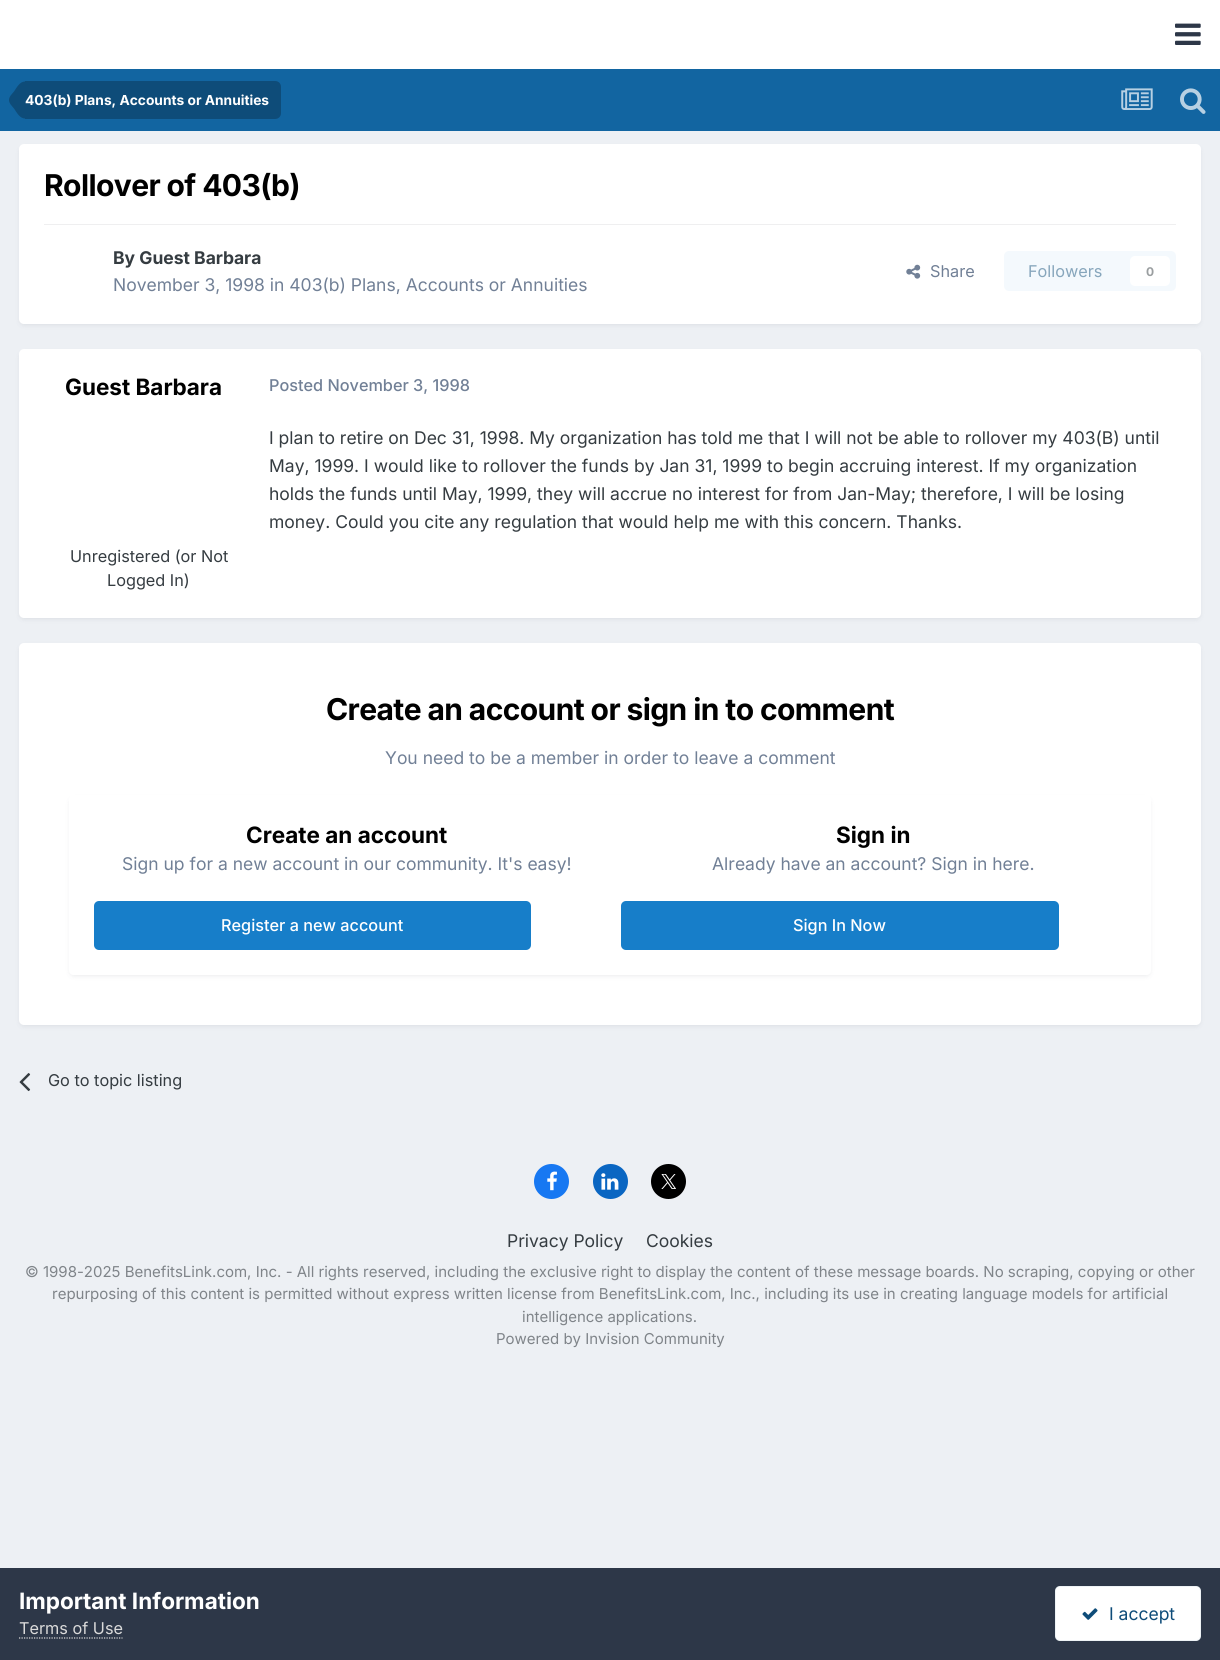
#include <cairo.h>
#include <math.h>
#include <stddef.h>


static void set_color(cairo_t *cr, unsigned color) {
    cairo_set_source_rgb(cr, (color >> 16) / 255.0, (color >> 8 & 255) / 255.0, (color & 255) / 255.0);
}

static void draw_text(cairo_t *cr, double x, double y, const char *s, const char *family, double size, int italic, int bold, unsigned color) {
    cairo_select_font_face(cr, family, italic ? CAIRO_FONT_SLANT_ITALIC : CAIRO_FONT_SLANT_NORMAL,
        bold ? CAIRO_FONT_WEIGHT_BOLD : CAIRO_FONT_WEIGHT_NORMAL);
    cairo_set_font_size(cr, size);
    set_color(cr, color);
    cairo_move_to(cr, x, y);
    cairo_show_text(cr, s);
}

static void draw_spaced(cairo_t *cr, double x, double y, const char *s, double letter, double word) {
    cairo_move_to(cr, x, y);
    while (*s) {
        char ch[5] = {0};
        int n = 0;
        do ch[n++] = *s++; while ((*s & 0xC0) == 0x80);
        cairo_show_text(cr, ch);
        cairo_rel_move_to(cr, letter + word * (*ch == ' '), 0);
    }
}

static void fill_rect(cairo_t *cr, double x, double y, double w, double h, unsigned color) {
    set_color(cr, color);
    cairo_rectangle(cr, x, y, w, h);
    cairo_fill(cr);
}

static void rounded_rect(cairo_t *cr, double x, double y, double w, double h, double r) {
    cairo_new_sub_path(cr);
    cairo_arc(cr, x + w - r, y + h - r, r, 0, M_PI / 2);
    cairo_arc(cr, x + r, y + h - r, r, M_PI / 2, M_PI);
    cairo_arc(cr, x + r, y + r, r, M_PI, 1.5 * M_PI);
    cairo_arc(cr, x + w - r, y + r, r, 1.5 * M_PI, 2 * M_PI);
    cairo_close_path(cr);
}

static void draw_shadow(cairo_t *cr, double x, double y, double w, double h, double r, double blur, double alpha) {
    cairo_push_group_with_content(cr, CAIRO_CONTENT_ALPHA);
    cairo_set_operator(cr, CAIRO_OPERATOR_SOURCE);
    for (int i = 15; i >= -15 && fmin(w, h) + blur * i / 3 > 0; i -= 2) {
        double e = blur * i / 6;
        cairo_set_source_rgba(cr, 0, 0, 0, alpha * erfc((i - 1) / 8.5) / 2);
        rounded_rect(cr, x - e, y - e, w + 2 * e, h + 2 * e, fmax(0, fmin(r + e + blur * .6, fmin(w, h) / 2 + e)));
        cairo_fill(cr);
    }
    cairo_pattern_t *soft = cairo_pop_group(cr);
    cairo_mask(cr, soft);
    cairo_pattern_destroy(soft);
}

static void draw_image(cairo_t *cr, const char *path, double x, double y, double w, double h) {
    cairo_surface_t *image = cairo_image_surface_create_from_png(path);
    cairo_save(cr);
    cairo_set_source_surface(cr, image, x, y);
    cairo_rectangle(cr, x, y, w, h);
    cairo_fill(cr);
    cairo_restore(cr);
    cairo_surface_destroy(image);
}

int main(void) {
    cairo_surface_t *surface = cairo_image_surface_create(CAIRO_FORMAT_RGB24, 1220, 1660);
    cairo_t *cr = cairo_create(surface);
    cairo_font_options_t *options = cairo_font_options_create();
    cairo_font_options_set_hint_metrics(options, CAIRO_HINT_METRICS_OFF);
    cairo_font_options_set_hint_style(options, CAIRO_HINT_STYLE_NONE);
    cairo_set_font_options(cr, options);
    cairo_set_miter_limit(cr, 4);
    set_color(cr, 0xEDF0F4);
    cairo_paint(cr);
    fill_rect(cr, 0, 0, 1220, 69, 0xFFFFFF);
    draw_image(cr, "assets/img1.png", 1175, 23, 26, 22);
    fill_rect(cr, 0, 69, 1220, 62, 0x1265A1);
    set_color(cr, 0x0E4C79);
    cairo_new_path(cr);
    cairo_move_to(cr, 25, 81);
    cairo_line_to(cr, 275, 81);
    cairo_curve_to(cr, 278.5, 81, 281, 83.5, 281, 87);
    cairo_line_to(cr, 281, 113);
    cairo_curve_to(cr, 281, 116.5, 278.5, 119, 275, 119);
    cairo_line_to(cr, 25, 119);
    cairo_close_path(cr);
    cairo_fill(cr);
    cairo_new_path(cr);
    cairo_move_to(cr, 25, 100);
    cairo_line_to(cr, 25, 118.5);
    cairo_curve_to(cr, 19.5, 118.5, 16.5, 112, 14, 108.5);
    cairo_curve_to(cr, 12, 106, 9, 103.5, 9, 100);
    cairo_close_path(cr);
    cairo_move_to(cr, 25, 100);
    cairo_line_to(cr, 9, 100);
    cairo_curve_to(cr, 9, 96.5, 12, 94, 14, 91.5);
    cairo_curve_to(cr, 16.5, 88, 19.5, 81.5, 25, 81.5);
    cairo_close_path(cr);
    cairo_fill(cr);
    draw_text(cr, 25, 105, "403(b) Plans, Accounts or Annuities", "Inter", 13.75, 0, 1, 0xFFFFFF);
    draw_image(cr, "assets/img2.png", 1121, 88, 32, 22);
    draw_image(cr, "assets/img3.png", 1180, 88, 26, 26);
    set_color(cr, 0x2D3748);
    draw_shadow(cr, 20, 148, 1180, 177, 4, 2.5, 0.1);
    set_color(cr, 0xFFFFFF);
    rounded_rect(cr, 19, 144, 1182, 180, 5);
    cairo_fill(cr);
    cairo_set_font_size(cr, 30);
    set_color(cr, 0x000000);
    draw_spaced(cr, 44, 196, "Rollover of 403(b)", -0.6, 0);
    fill_rect(cr, 44, 224, 1132, 1, 0xEFEFF0);
    draw_text(cr, 113, 264, "By Guest Barbara", "Inter", 17.5, 0, 1, 0x353C41);
    draw_text(cr, 113, 291, "November 3, 1998 in 403(b) Plans, Accounts or Annuities", "Inter", 17.5, 0, 0, 0x718096);
    draw_image(cr, "assets/img4.png", 906, 264, 15, 15);
    draw_text(cr, 930, 277, "Share", "Inter", 16.25, 0, 0, 0x718096);
    set_color(cr, 0xF4F9FD);
    rounded_rect(cr, 1004, 251, 172, 40, 5);
    cairo_fill(cr);
    draw_text(cr, 1028, 277, "Followers", "Inter", 16.25, 0, 0, 0x87A6BC);
    set_color(cr, 0xFFFFFF);
    rounded_rect(cr, 1130, 256, 40, 30, 5);
    cairo_fill(cr);
    draw_text(cr, 1146, 276, "0", "Inter", 12, 0, 1, 0x9A9EA0);
    set_color(cr, 0x2D3748);
    draw_shadow(cr, 20, 353, 1180, 266, 4, 2.5, 0.1);
    set_color(cr, 0xFFFFFF);
    rounded_rect(cr, 19, 349, 1182, 269, 5);
    cairo_fill(cr);
    draw_text(cr, 65, 395, "Guest Barbara", "Inter", 22.5, 0, 1, 0x000000);
    draw_text(cr, 70, 562, "Unregistered (or Not", "Inter", 16.25, 0, 0, 0x353C41);
    draw_text(cr, 107, 586, "Logged In)", "Inter", 16.25, 0, 0, 0x353C41);
    draw_text(cr, 269, 391, "Posted November 3, 1998", "Inter Medium", 16.25, 0, 0, 0x718096);
    draw_text(cr, 269, 444, "I plan to retire on Dec 31, 1998. My organization has told me that I will not be able to rollover my 403(B) until", "Inter", 17.5, 0, 0, 0x353C41);
    draw_text(cr, 269, 472, "May, 1999. I would like to rollover the funds by Jan 31, 1999 to begin accruing interest. If my organization", "Inter", 17.5, 0, 0, 0x353C41);
    draw_text(cr, 269, 500, "holds the funds until May, 1999, they will accrue no interest for from Jan-May; therefore, I will be losing", "Inter", 17.5, 0, 0, 0x353C41);
    draw_text(cr, 269, 528, "money. Could you cite any regulation that would help me with this concern. Thanks.", "Inter", 17.5, 0, 0, 0x353C41);
    set_color(cr, 0x2D3748);
    draw_shadow(cr, 20, 646, 1180, 380, 4, 2.5, 0.1);
    set_color(cr, 0xFFFFFF);
    rounded_rect(cr, 19, 643, 1182, 382, 5);
    cairo_fill(cr);
    cairo_select_font_face(cr, "Inter", CAIRO_FONT_SLANT_NORMAL, CAIRO_FONT_WEIGHT_BOLD);
    cairo_set_font_size(cr, 30);
    set_color(cr, 0x000000);
    draw_spaced(cr, 326, 720, "Create an account or sign in to comment", -0.6, 0);
    draw_text(cr, 385, 764, "You need to be a member in order to leave a comment", "Inter", 17.5, 0, 0, 0x718096);
    cairo_save(cr);
    cairo_set_fill_rule(cr, CAIRO_FILL_RULE_EVEN_ODD);
    cairo_new_path(cr);
    cairo_move_to(cr, 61, 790);
    cairo_line_to(cr, 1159, 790);
    cairo_line_to(cr, 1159, 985);
    cairo_line_to(cr, 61, 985);
    cairo_close_path(cr);
    cairo_move_to(cr, 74, 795);
    cairo_line_to(cr, 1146, 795);
    cairo_curve_to(cr, 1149, 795, 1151, 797, 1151, 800);
    cairo_line_to(cr, 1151, 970);
    cairo_curve_to(cr, 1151, 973, 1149, 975, 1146, 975);
    cairo_line_to(cr, 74, 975);
    cairo_curve_to(cr, 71, 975, 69, 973, 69, 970);
    cairo_line_to(cr, 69, 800);
    cairo_curve_to(cr, 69, 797, 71, 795, 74, 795);
    cairo_close_path(cr);
    cairo_clip(cr);
    set_color(cr, 0x2D3748);
    draw_shadow(cr, 70, 799, 1080, 177, 4, 2.5, 0.1);
    cairo_restore(cr);
    draw_text(cr, 246, 843, "Create an account", "Inter", 22.5, 0, 1, 0x000000);
    draw_text(cr, 122, 870, "Sign up for a new account in our community. It's easy!", "Inter", 17.5, 0, 0, 0x718096);
    set_color(cr, 0x177EC9);
    rounded_rect(cr, 94, 901, 437, 49, 5);
    cairo_fill(cr);
    draw_text(cr, 221, 931, "Register a new account", "Inter Medium", 16.25, 0, 0, 0xFFFFFF);
    draw_text(cr, 836, 843, "Sign in", "Inter", 22.5, 0, 1, 0x000000);
    draw_text(cr, 712, 870, "Already have an account? Sign in here.", "Inter", 17.5, 0, 0, 0x718096);
    set_color(cr, 0x177EC9);
    rounded_rect(cr, 621, 901, 438, 49, 5);
    cairo_fill(cr);
    draw_text(cr, 793, 931, "Sign In Now", "Inter Medium", 16.25, 0, 0, 0xFFFFFF);
    draw_image(cr, "assets/img5.png", 19, 1073, 12, 19);
    draw_text(cr, 48, 1086, "Go to topic listing", "Inter", 16.25, 0, 0, 0x353C41);
    set_color(cr, 0x1778F2);
    cairo_new_path(cr);
    cairo_arc(cr, 551.5, 1181.5, 17.5, 0, 2 * M_PI);
    cairo_fill(cr);
    draw_image(cr, "assets/img6.png", 547, 1171, 10, 20);
    set_color(cr, 0x0A66C2);
    cairo_arc(cr, 610.5, 1181.5, 17.5, 0, 2 * M_PI);
    cairo_fill(cr);
    draw_image(cr, "assets/img7.png", 601, 1173, 18, 17);
    set_color(cr, 0x000000);
    cairo_arc(cr, 668.5, 1181.5, 17.5, 0, 2 * M_PI);
    cairo_fill(cr);
    draw_image(cr, "assets/img8.png", 661, 1174, 15, 15);
    draw_text(cr, 507, 1247, "Privacy Policy", "Inter", 17.5, 0, 0, 0x353C41);
    draw_text(cr, 646, 1247, "Cookies", "Inter", 17.5, 0, 0, 0x353C41);
    draw_text(cr, 25, 1277, "© 1998-2025 BenefitsLink.com, Inc. - All rights reserved, including the exclusive right to display the content of these message boards. No scraping, copying or other", "Inter", 15, 0, 0, 0x7F8489);
    draw_text(cr, 52, 1299, "repurposing of this content is permitted without express written license from BenefitsLink.com, Inc., including its use in creating language models for artificial", "Inter", 15, 0, 0, 0x7F8489);
    draw_text(cr, 522, 1322, "intelligence applications.", "Inter", 15, 0, 0, 0x7F8489);
    draw_text(cr, 496, 1344, "Powered by Invision Community", "Inter", 15, 0, 0, 0x7F8489);
    fill_rect(cr, 0, 1568, 1220, 92, 0x2D3748);
    draw_text(cr, 19, 1609, "Important Information", "Inter", 22.5, 0, 1, 0xFFFFFF);
    draw_text(cr, 19, 1634, "Terms of Use", "Inter", 16.25, 0, 0, 0xDADADA);
    cairo_new_path(cr);
    cairo_move_to(cr, 19, 1638);
    cairo_line_to(cr, 122.5, 1638);
    cairo_set_line_width(cr, 1.2);
    cairo_set_dash(cr, (double[]){1.25, 1.25}, 2, 0);
    cairo_stroke(cr);
    set_color(cr, 0xFFFFFF);
    rounded_rect(cr, 1055, 1586, 146, 55, 5);
    cairo_fill(cr);
    rounded_rect(cr, 1055.5, 1586.5, 145, 54, 4.5);
    cairo_set_source_rgba(cr, 0.055, 0.298, 0.475, 0.07);
    cairo_set_line_width(cr, 1);
    cairo_set_dash(cr, NULL, 0, 0);
    cairo_stroke(cr);
    draw_image(cr, "assets/img9.png", 1082, 1608, 16, 12);
    draw_text(cr, 1109, 1620, "I accept", "Inter", 17.5, 0, 0, 0x0E4C79);
    cairo_surface_write_to_png(surface, "output.png");
    cairo_font_options_destroy(options);
    cairo_destroy(cr);
    cairo_surface_destroy(surface);
    return 0;
}
